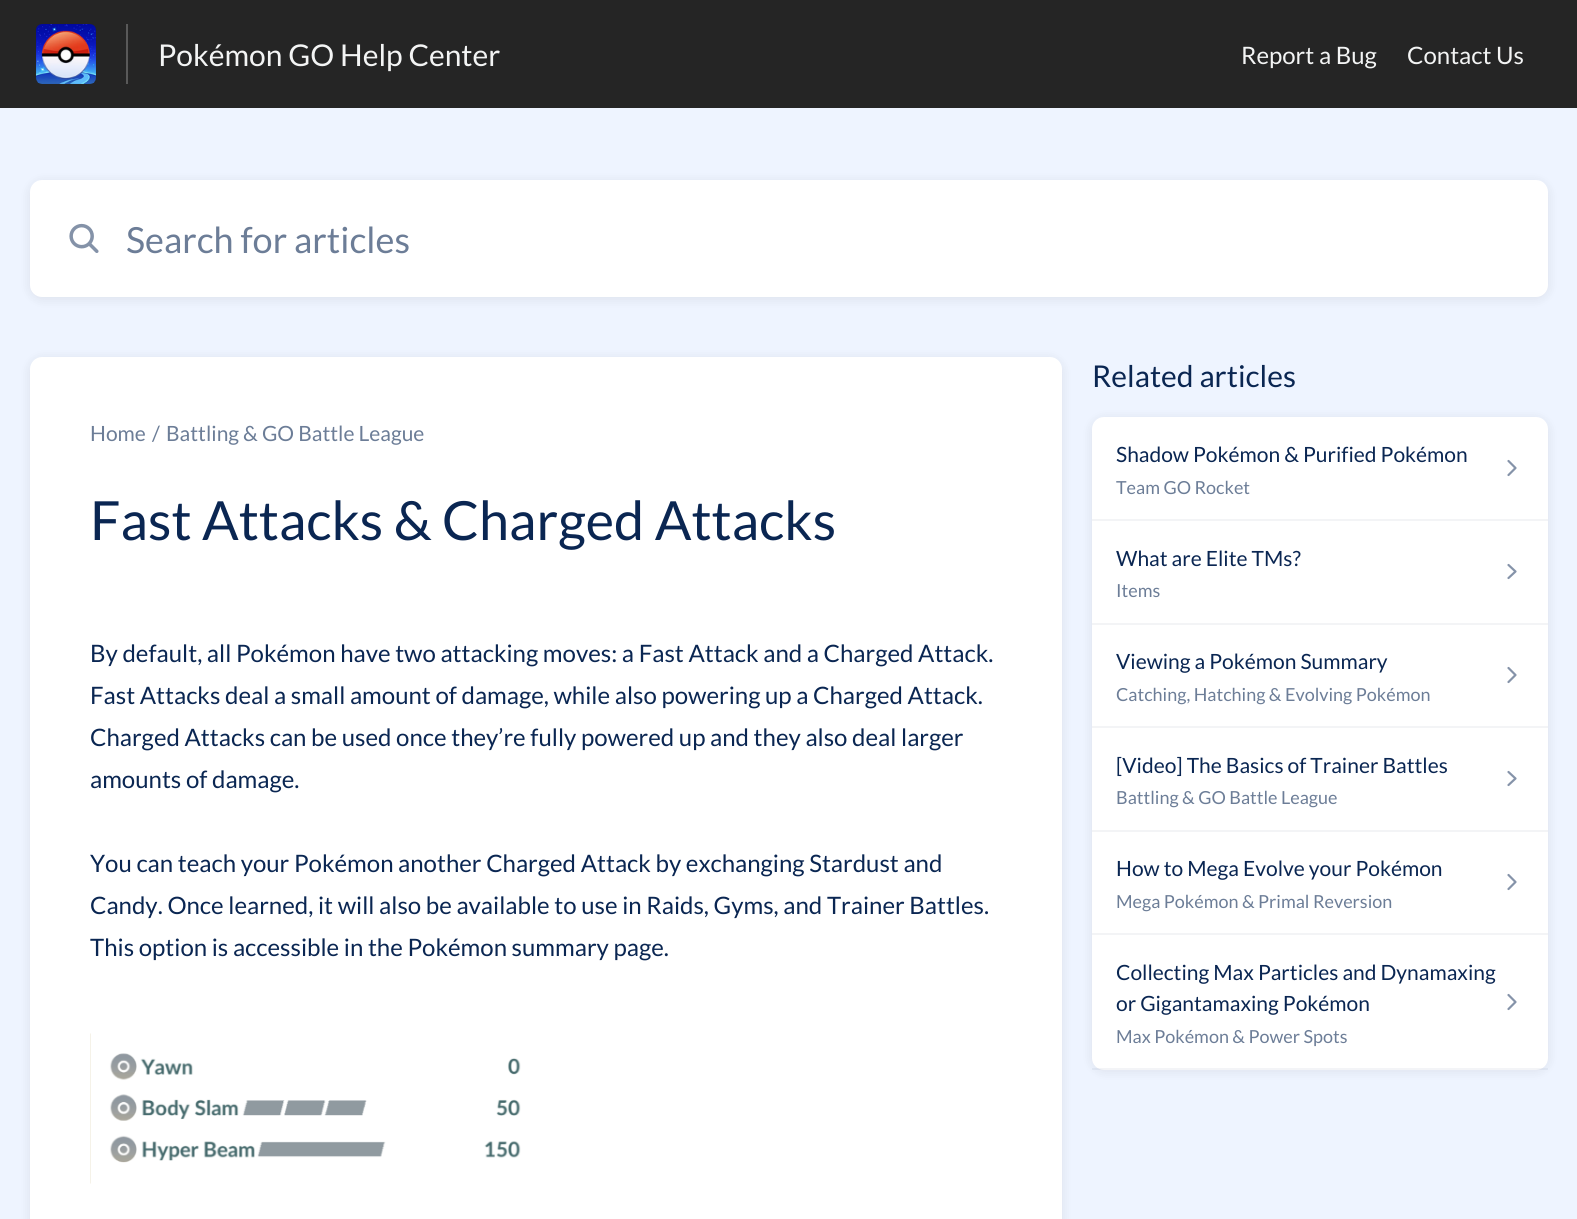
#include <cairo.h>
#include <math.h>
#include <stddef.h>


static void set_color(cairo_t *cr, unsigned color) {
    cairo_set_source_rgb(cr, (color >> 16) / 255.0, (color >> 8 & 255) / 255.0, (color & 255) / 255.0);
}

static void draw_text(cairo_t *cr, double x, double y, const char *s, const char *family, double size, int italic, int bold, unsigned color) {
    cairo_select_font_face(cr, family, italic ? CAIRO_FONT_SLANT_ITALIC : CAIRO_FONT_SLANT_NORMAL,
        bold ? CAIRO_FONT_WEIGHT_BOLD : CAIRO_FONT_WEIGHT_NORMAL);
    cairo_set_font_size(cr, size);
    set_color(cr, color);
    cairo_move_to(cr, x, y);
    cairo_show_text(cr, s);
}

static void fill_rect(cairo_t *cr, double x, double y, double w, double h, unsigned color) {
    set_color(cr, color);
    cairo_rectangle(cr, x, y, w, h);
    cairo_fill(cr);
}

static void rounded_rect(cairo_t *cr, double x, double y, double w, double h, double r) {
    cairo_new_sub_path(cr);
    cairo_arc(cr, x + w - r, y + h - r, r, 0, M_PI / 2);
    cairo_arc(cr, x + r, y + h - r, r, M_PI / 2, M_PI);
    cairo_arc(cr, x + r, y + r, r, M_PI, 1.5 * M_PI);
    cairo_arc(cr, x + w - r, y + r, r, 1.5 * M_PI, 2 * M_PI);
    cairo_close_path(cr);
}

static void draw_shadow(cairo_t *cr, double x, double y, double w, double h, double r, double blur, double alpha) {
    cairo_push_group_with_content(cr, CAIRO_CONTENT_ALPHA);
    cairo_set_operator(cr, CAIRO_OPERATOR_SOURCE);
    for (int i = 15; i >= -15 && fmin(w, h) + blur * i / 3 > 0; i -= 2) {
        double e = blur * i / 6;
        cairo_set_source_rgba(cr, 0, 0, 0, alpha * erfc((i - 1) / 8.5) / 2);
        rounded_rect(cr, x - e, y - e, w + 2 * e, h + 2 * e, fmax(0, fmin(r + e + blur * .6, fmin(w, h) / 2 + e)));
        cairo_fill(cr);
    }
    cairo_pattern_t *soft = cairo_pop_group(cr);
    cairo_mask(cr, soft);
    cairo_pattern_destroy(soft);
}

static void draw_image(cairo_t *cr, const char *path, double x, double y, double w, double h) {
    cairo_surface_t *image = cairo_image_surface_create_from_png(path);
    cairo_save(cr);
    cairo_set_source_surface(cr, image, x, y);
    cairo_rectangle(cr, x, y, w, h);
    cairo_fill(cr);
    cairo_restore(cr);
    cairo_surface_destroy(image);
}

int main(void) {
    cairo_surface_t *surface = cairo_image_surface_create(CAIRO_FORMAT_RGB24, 1577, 1219);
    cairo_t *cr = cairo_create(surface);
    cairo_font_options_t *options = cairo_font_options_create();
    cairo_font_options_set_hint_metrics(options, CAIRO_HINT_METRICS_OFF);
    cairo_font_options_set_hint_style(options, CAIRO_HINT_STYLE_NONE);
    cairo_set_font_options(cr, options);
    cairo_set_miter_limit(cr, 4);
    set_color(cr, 0xEEF4FF);
    cairo_paint(cr);
    fill_rect(cr, 0, 0, 1577, 108, 0x252525);
    fill_rect(cr, 126, 24, 2, 60, 0x595959);
    draw_image(cr, "assets/img1.png", 36, 24, 60, 60);
    draw_text(cr, 158, 66, "Pokémon GO Help Center", "Lato", 30, 0, 0, 0xF3F4F4);
    draw_text(cr, 1241, 64, "Report a Bug", "Lato", 24, 0, 0, 0xF3F4F4);
    draw_text(cr, 1407, 64, "Contact Us", "Lato", 24, 0, 0, 0xF3F4F4);
    set_color(cr, 0x000000);
    draw_shadow(cr, 30, 182, 1518, 117, 12, 6, 0.08);
    set_color(cr, 0xFFFFFF);
    rounded_rect(cr, 30, 180, 1518, 117, 12);
    cairo_fill(cr);
    draw_image(cr, "assets/img2.png", 69, 223, 30, 30);
    draw_text(cr, 126, 253, "Search for articles", "Lato", 36, 0, 0, 0x6C7D97);
    set_color(cr, 0x000000);
    draw_shadow(cr, 30, 359, 1032, 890, 12, 6, 0.08);
    set_color(cr, 0xFFFFFF);
    cairo_new_path(cr);
    cairo_move_to(cr, 42, 357);
    cairo_line_to(cr, 1050, 357);
    cairo_curve_to(cr, 1056.5, 357, 1062, 362.5, 1062, 369);
    cairo_line_to(cr, 1062, 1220);
    cairo_line_to(cr, 30, 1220);
    cairo_line_to(cr, 30, 369);
    cairo_curve_to(cr, 30, 362.5, 35.5, 357, 42, 357);
    cairo_close_path(cr);
    cairo_fill(cr);
    draw_text(cr, 90, 441, "Home", "Lato", 21, 0, 0, 0x6C7D97);
    draw_text(cr, 152, 441, "/", "Lato", 21, 0, 0, 0x6C7D97);
    draw_text(cr, 166, 441, "Battling & GO Battle League", "Lato", 21, 0, 0, 0x6C7D97);
    draw_text(cr, 90, 540, "Fast Attacks & Charged Attacks", "Lato", 54, 0, 0, 0x0A2652);
    draw_text(cr, 90, 662, "By default, all Pokémon have two attacking moves: a Fast Attack and a Charged Attack.", "Lato", 24, 0, 0, 0x0A2652);
    draw_text(cr, 90, 704, "Fast Attacks deal a small amount of damage, while also powering up a Charged Attack.", "Lato", 24, 0, 0, 0x0A2652);
    draw_text(cr, 90, 746, "Charged Attacks can be used once they’re fully powered up and they also deal larger", "Lato", 24, 0, 0, 0x0A2652);
    draw_text(cr, 90, 788, "amounts of damage.", "Lato", 24, 0, 0, 0x0A2652);
    draw_text(cr, 90, 872, "You can teach your Pokémon another Charged Attack by exchanging Stardust and", "Lato", 24, 0, 0, 0x0A2652);
    draw_text(cr, 90, 914, "Candy. Once learned, it will also be available to use in Raids, Gyms, and Trainer Battles.", "Lato", 24, 0, 0, 0x0A2652);
    draw_text(cr, 90, 956, "This option is accessible in the Pokémon summary page.", "Lato", 24, 0, 0, 0x0A2652);
    draw_image(cr, "assets/img3.png", 90, 1033, 431, 151);
    draw_text(cr, 1092, 387, "Related articles", "Lato", 30, 0, 0, 0x0A2652);
    set_color(cr, 0x000000);
    draw_shadow(cr, 1092, 419, 456, 652, 12, 6, 0.08);
    set_color(cr, 0xFFFFFF);
    rounded_rect(cr, 1092, 417, 456, 653, 12);
    cairo_fill(cr);
    fill_rect(cr, 1092, 519, 456, 2, 0xF3F4F6);
    draw_text(cr, 1116, 462, "Shadow Pokémon & Purified Pokémon", "Lato", 21, 0, 0, 0x0A2652);
    draw_text(cr, 1116, 494, "Team GO Rocket", "Lato", 18, 0, 0, 0x6C7D97);
    cairo_new_path(cr);
    cairo_move_to(cr, 1508.5, 461);
    cairo_line_to(cr, 1515.5, 468);
    cairo_line_to(cr, 1508.5, 475);
    set_color(cr, 0x8593A9);
    cairo_set_line_width(cr, 2.2);
    cairo_set_line_cap(cr, CAIRO_LINE_CAP_ROUND);
    cairo_set_line_join(cr, CAIRO_LINE_JOIN_ROUND);
    cairo_stroke(cr);
    fill_rect(cr, 1092, 623, 456, 2, 0xF3F4F6);
    draw_text(cr, 1116, 566, "What are Elite TMs?", "Lato", 21, 0, 0, 0x0A2652);
    draw_text(cr, 1116, 597, "Items", "Lato", 18, 0, 0, 0x6C7D97);
    cairo_new_path(cr);
    cairo_move_to(cr, 1508.5, 565);
    cairo_line_to(cr, 1515.5, 571.5);
    cairo_line_to(cr, 1508.5, 578);
    set_color(cr, 0x8593A9);
    cairo_stroke(cr);
    fill_rect(cr, 1092, 726, 456, 2, 0xF3F4F6);
    draw_text(cr, 1116, 669, "Viewing a Pokémon Summary", "Lato", 21, 0, 0, 0x0A2652);
    draw_text(cr, 1116, 701, "Catching, Hatching & Evolving Pokémon", "Lato", 18, 0, 0, 0x6C7D97);
    cairo_new_path(cr);
    cairo_move_to(cr, 1508.5, 668);
    cairo_line_to(cr, 1515.5, 675);
    cairo_line_to(cr, 1508.5, 682);
    set_color(cr, 0x8593A9);
    cairo_stroke(cr);
    fill_rect(cr, 1092, 830, 456, 2, 0xF3F4F6);
    draw_text(cr, 1116, 773, "[Video] The Basics of Trainer Battles", "Lato", 21, 0, 0, 0x0A2652);
    draw_text(cr, 1116, 804, "Battling & GO Battle League", "Lato", 18, 0, 0, 0x6C7D97);
    cairo_new_path(cr);
    cairo_move_to(cr, 1508.5, 772);
    cairo_line_to(cr, 1515.5, 778.5);
    cairo_line_to(cr, 1508.5, 785);
    set_color(cr, 0x8593A9);
    cairo_stroke(cr);
    fill_rect(cr, 1092, 933, 456, 2, 0xF3F4F6);
    draw_text(cr, 1116, 876, "How to Mega Evolve your Pokémon", "Lato", 21, 0, 0, 0x0A2652);
    draw_text(cr, 1116, 908, "Mega Pokémon & Primal Reversion", "Lato", 18, 0, 0, 0x6C7D97);
    cairo_new_path(cr);
    cairo_move_to(cr, 1508.5, 875);
    cairo_line_to(cr, 1515.5, 882);
    cairo_line_to(cr, 1508.5, 889);
    set_color(cr, 0x8593A9);
    cairo_stroke(cr);
    cairo_set_source_rgba(cr, 0.039, 0.149, 0.322, 0.05);
    cairo_rectangle(cr, 1092, 1068, 456, 2);
    cairo_fill(cr);
    draw_text(cr, 1116, 980, "Collecting Max Particles and Dynamaxing", "Lato", 21, 0, 0, 0x0A2652);
    draw_text(cr, 1116, 1011, "or Gigantamaxing Pokémon", "Lato", 21, 0, 0, 0x0A2652);
    draw_text(cr, 1116, 1043, "Max Pokémon & Power Spots", "Lato", 18, 0, 0, 0x6C7D97);
    cairo_new_path(cr);
    cairo_move_to(cr, 1508.5, 995);
    cairo_line_to(cr, 1515.5, 1002);
    cairo_line_to(cr, 1508.5, 1009);
    set_color(cr, 0x8593A9);
    cairo_stroke(cr);
    cairo_surface_write_to_png(surface, "output.png");
    cairo_font_options_destroy(options);
    cairo_destroy(cr);
    cairo_surface_destroy(surface);
    return 0;
}
